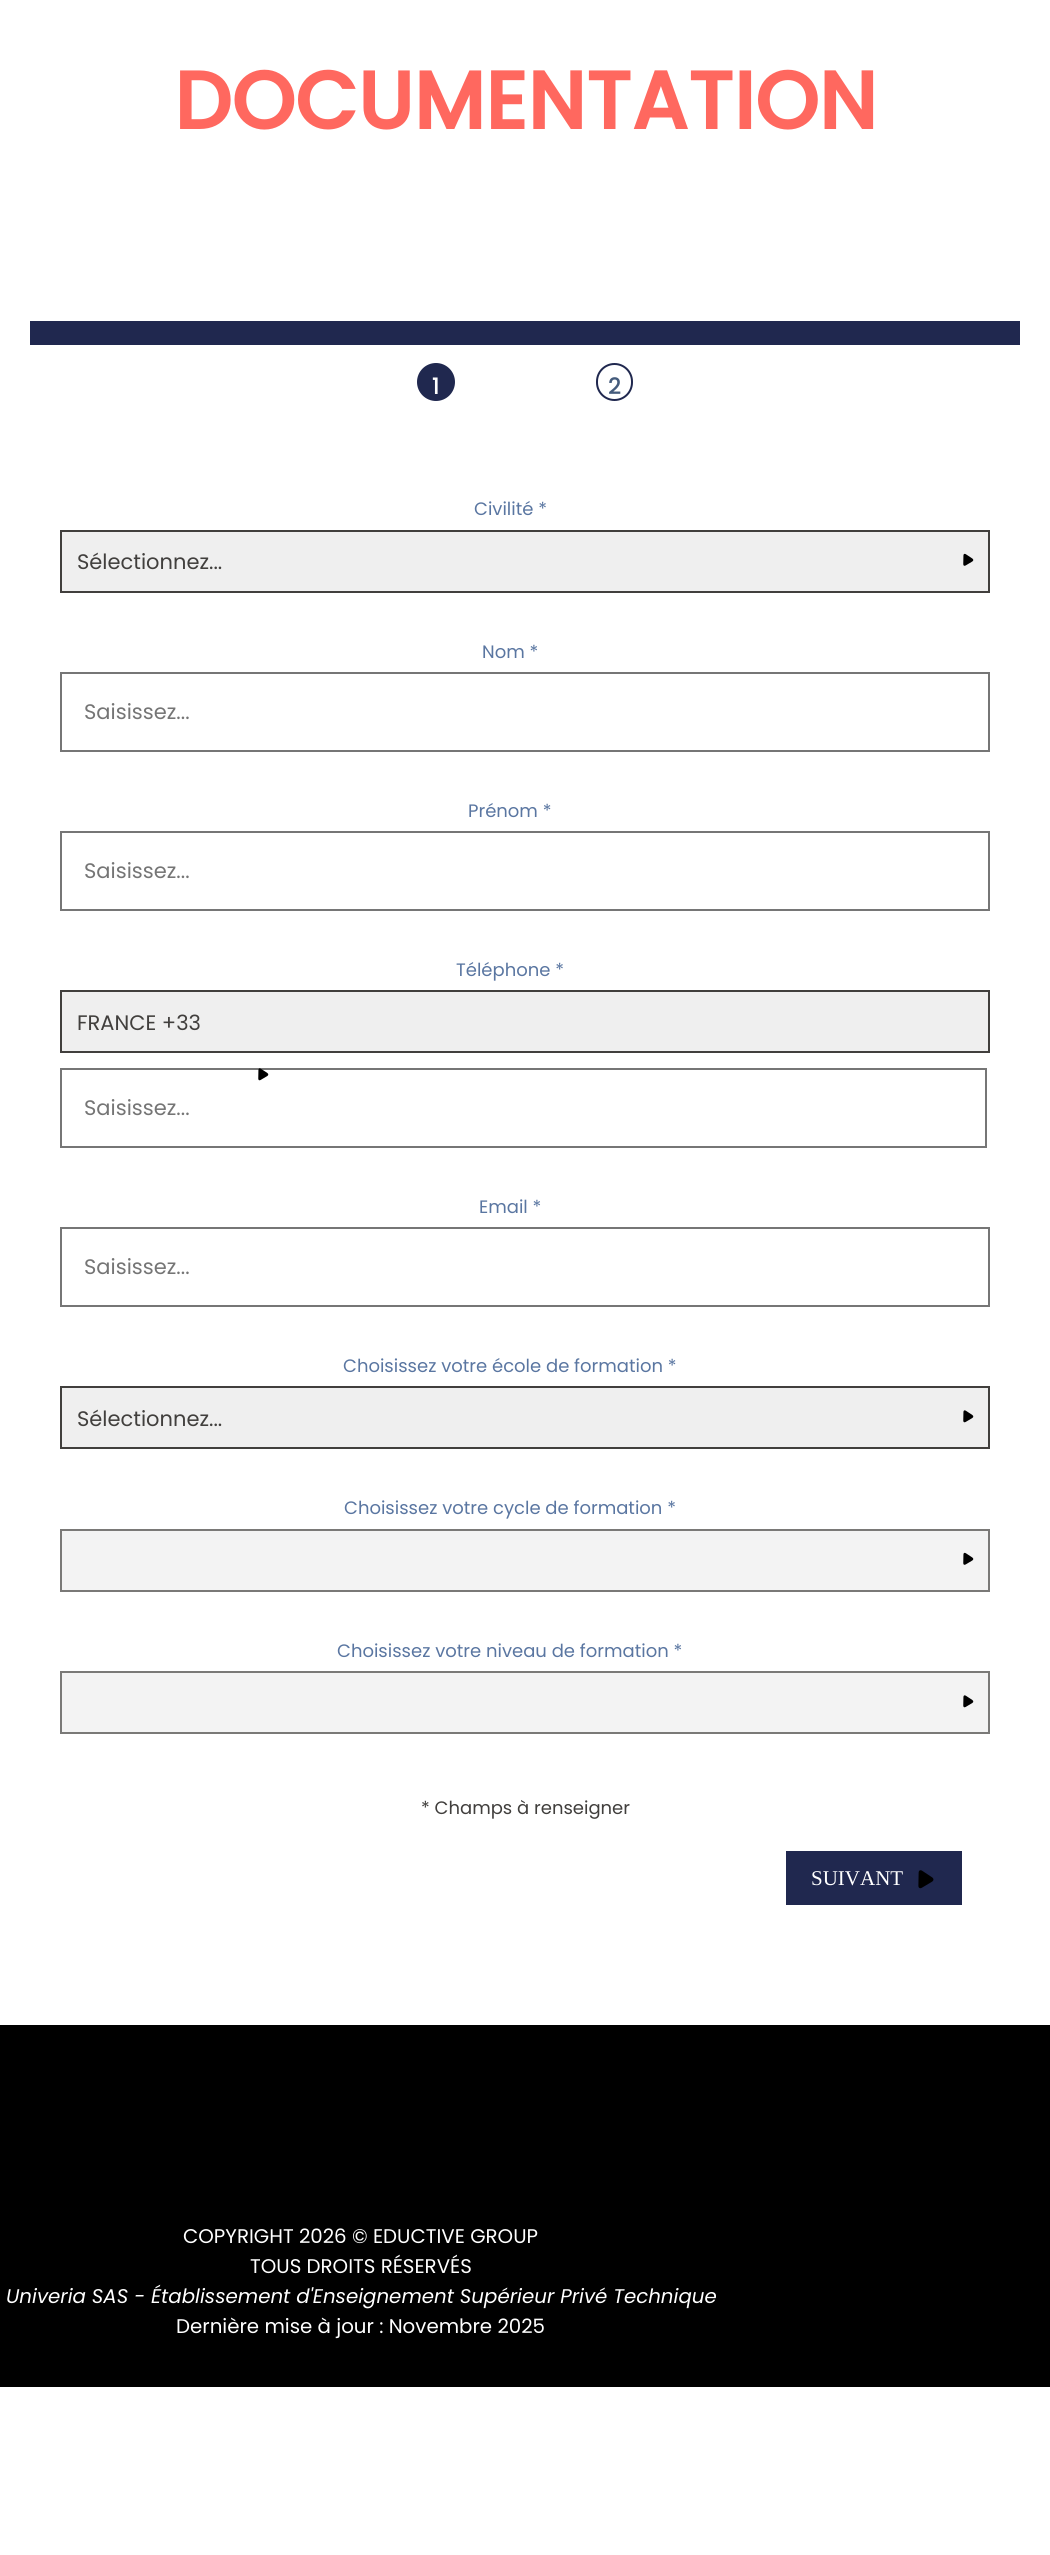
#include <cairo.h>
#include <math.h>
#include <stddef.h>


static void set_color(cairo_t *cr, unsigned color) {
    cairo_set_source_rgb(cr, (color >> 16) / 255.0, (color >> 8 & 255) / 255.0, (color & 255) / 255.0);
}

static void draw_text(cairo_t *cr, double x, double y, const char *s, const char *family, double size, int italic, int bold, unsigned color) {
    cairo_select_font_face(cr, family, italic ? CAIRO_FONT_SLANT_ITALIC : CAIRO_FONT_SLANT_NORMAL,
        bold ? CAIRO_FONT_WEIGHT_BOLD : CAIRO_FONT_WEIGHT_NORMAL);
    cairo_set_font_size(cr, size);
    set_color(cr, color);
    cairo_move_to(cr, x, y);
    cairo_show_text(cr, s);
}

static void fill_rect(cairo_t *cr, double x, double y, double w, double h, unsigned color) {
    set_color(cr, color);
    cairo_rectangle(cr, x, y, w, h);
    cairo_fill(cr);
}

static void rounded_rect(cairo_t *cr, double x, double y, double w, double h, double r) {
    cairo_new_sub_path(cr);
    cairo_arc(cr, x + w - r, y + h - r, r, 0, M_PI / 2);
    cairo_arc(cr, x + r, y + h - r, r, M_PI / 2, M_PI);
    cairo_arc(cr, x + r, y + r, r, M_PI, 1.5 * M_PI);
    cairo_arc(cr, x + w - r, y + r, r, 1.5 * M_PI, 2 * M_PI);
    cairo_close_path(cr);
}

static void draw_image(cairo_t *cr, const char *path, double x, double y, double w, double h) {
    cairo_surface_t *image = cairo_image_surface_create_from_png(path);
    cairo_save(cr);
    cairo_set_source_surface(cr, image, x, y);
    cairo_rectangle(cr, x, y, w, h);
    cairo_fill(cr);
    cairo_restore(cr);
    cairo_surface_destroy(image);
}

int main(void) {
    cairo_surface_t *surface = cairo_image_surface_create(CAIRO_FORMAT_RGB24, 1050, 2555);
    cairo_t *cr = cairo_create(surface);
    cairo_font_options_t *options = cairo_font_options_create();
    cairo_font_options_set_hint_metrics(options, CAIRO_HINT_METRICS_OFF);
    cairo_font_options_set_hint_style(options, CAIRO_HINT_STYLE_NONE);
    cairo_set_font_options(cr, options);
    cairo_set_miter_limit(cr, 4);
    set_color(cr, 0xFFFFFF);
    cairo_paint(cr);
    draw_text(cr, 174, 129, "DOCUMENTATION", "Poppins", 81, 0, 1, 0xFF685F);
    fill_rect(cr, 30, 321, 990, 24, 0x20284F);
    cairo_new_path(cr);
    cairo_arc(cr, 436, 382, 18, 0, 2 * M_PI);
    cairo_fill_preserve(cr);
    cairo_stroke(cr);
    draw_text(cr, 432, 394, "1", "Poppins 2", 22, 0, 1, 0xFFFFFF);
    rounded_rect(cr, 597, 364, 35, 36, 17.5);
    set_color(cr, 0x20284F);
    cairo_stroke(cr);
    draw_text(cr, 608, 394, "2", "Poppins 2", 22, 0, 1, 0x445B7C);
    draw_text(cr, 474, 515, "Civilité *", "Poppins", 18, 0, 0, 0x5A76A1);
    set_color(cr, 0xEFEFEF);
    cairo_rectangle(cr, 61, 531, 928, 61);
    cairo_fill_preserve(cr);
    set_color(cr, 0x413F3D);
    cairo_stroke(cr);
    draw_text(cr, 77, 569, "Sélectionnez...", "Poppins", 21, 0, 0, 0x413F3D);
    draw_image(cr, "assets/img1.png", 963, 553, 11, 13);
    draw_text(cr, 482, 658, "Nom *", "Poppins", 18, 0, 0, 0x5A76A1);
    cairo_rectangle(cr, 61, 673, 928, 78);
    set_color(cr, 0x767676);
    cairo_stroke(cr);
    draw_text(cr, 84, 719, "Saisissez...", "Poppins", 21, 0, 0, 0x757575);
    draw_text(cr, 468, 817, "Prénom *", "Poppins", 18, 0, 0, 0x5A76A1);
    cairo_rectangle(cr, 61, 832, 928, 78);
    set_color(cr, 0x767676);
    cairo_stroke(cr);
    draw_text(cr, 84, 878, "Saisissez...", "Poppins", 21, 0, 0, 0x757575);
    draw_text(cr, 456, 976, "Téléphone *", "Poppins", 18, 0, 0, 0x5A76A1);
    set_color(cr, 0xEFEFEF);
    cairo_rectangle(cr, 61, 991, 928, 61);
    cairo_fill_preserve(cr);
    set_color(cr, 0x413F3D);
    cairo_stroke(cr);
    draw_text(cr, 77, 1030, "FRANCE +33", "Poppins", 21, 0, 0, 0x413F3D);
    cairo_rectangle(cr, 61, 1069, 925, 78);
    set_color(cr, 0x767676);
    cairo_stroke(cr);
    draw_image(cr, "assets/img2.png", 258, 1068, 11, 13);
    draw_text(cr, 84, 1115, "Saisissez...", "Poppins", 21, 0, 0, 0x757575);
    draw_text(cr, 479, 1213, "Email *", "Poppins", 18, 0, 0, 0x5A76A1);
    cairo_rectangle(cr, 61, 1228, 928, 78);
    set_color(cr, 0x767676);
    cairo_stroke(cr);
    draw_text(cr, 84, 1274, "Saisissez...", "Poppins", 21, 0, 0, 0x757575);
    draw_text(cr, 343, 1372, "Choisissez votre école de formation *", "Poppins", 18, 0, 0, 0x5A76A1);
    set_color(cr, 0xEFEFEF);
    cairo_rectangle(cr, 61, 1387, 928, 61);
    cairo_fill_preserve(cr);
    set_color(cr, 0x413F3D);
    cairo_stroke(cr);
    draw_text(cr, 77, 1426, "Sélectionnez...", "Poppins", 21, 0, 0, 0x413F3D);
    draw_image(cr, "assets/img3.png", 963, 1410, 11, 13);
    draw_text(cr, 344, 1514, "Choisissez votre cycle de formation *", "Poppins", 18, 0, 0, 0x5A76A1);
    set_color(cr, 0xF3F3F3);
    cairo_rectangle(cr, 61, 1530, 928, 61);
    cairo_fill_preserve(cr);
    set_color(cr, 0x7A7977);
    cairo_stroke(cr);
    draw_image(cr, "assets/img4.png", 963, 1552, 11, 13);
    draw_text(cr, 337, 1657, "Choisissez votre niveau de formation *", "Poppins", 18, 0, 0, 0x5A76A1);
    set_color(cr, 0xF3F3F3);
    cairo_rectangle(cr, 61, 1672, 928, 61);
    cairo_fill_preserve(cr);
    set_color(cr, 0x7A7977);
    cairo_stroke(cr);
    draw_image(cr, "assets/img5.png", 963, 1695, 11, 13);
    draw_text(cr, 421, 1814, "* Champs à renseigner", "Poppins", 18, 0, 0, 0x413F3D);
    fill_rect(cr, 786, 1851, 176, 54, 0x20284F);
    draw_text(cr, 811, 1885, "SUIVANT", "Liberation Serif", 21, 0, 0, 0xFFFFFF);
    draw_image(cr, "assets/img6.png", 918, 1870, 16, 19);
    fill_rect(cr, 0, 2025, 1050, 362, 0x000000);
    draw_text(cr, 183, 2243, "COPYRIGHT 2026 © EDUCTIVE GROUP", "Poppins", 19.8, 0, 0, 0xFFFFFF);
    draw_text(cr, 250, 2273, "TOUS DROITS RÉSERVÉS", "Poppins", 19.8, 0, 0, 0xFFFFFF);
    draw_text(cr, 6, 2303, "Univeria SAS - Établissement d'Enseignement Supérieur Privé Technique", "Poppins", 19.8, 1, 0, 0xFFFFFF);
    draw_text(cr, 176, 2333, "Dernière mise à jour : Novembre 2025", "Poppins", 19.8, 0, 0, 0xFFFFFF);
    cairo_surface_write_to_png(surface, "output.png");
    cairo_font_options_destroy(options);
    cairo_destroy(cr);
    cairo_surface_destroy(surface);
    return 0;
}
